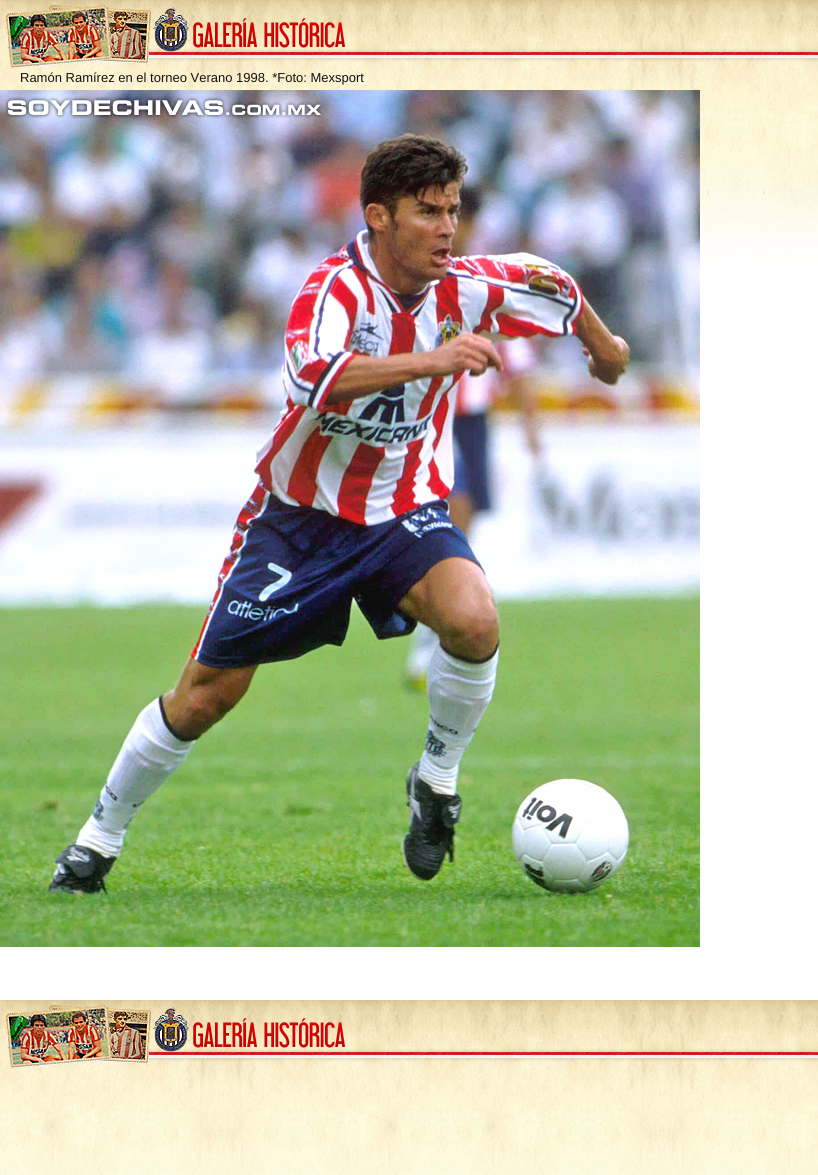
#include <cairo.h>
#include <math.h>
#include <stddef.h>


static void set_color(cairo_t *cr, unsigned color) {
    cairo_set_source_rgb(cr, (color >> 16) / 255.0, (color >> 8 & 255) / 255.0, (color & 255) / 255.0);
}

static void draw_text(cairo_t *cr, double x, double y, const char *s, const char *family, double size, int italic, int bold, unsigned color) {
    cairo_select_font_face(cr, family, italic ? CAIRO_FONT_SLANT_ITALIC : CAIRO_FONT_SLANT_NORMAL,
        bold ? CAIRO_FONT_WEIGHT_BOLD : CAIRO_FONT_WEIGHT_NORMAL);
    cairo_set_font_size(cr, size);
    set_color(cr, color);
    cairo_move_to(cr, x, y);
    cairo_show_text(cr, s);
}

static void draw_image(cairo_t *cr, const char *path, double x, double y, double w, double h) {
    cairo_surface_t *image = cairo_image_surface_create_from_png(path);
    cairo_save(cr);
    cairo_set_source_surface(cr, image, x, y);
    cairo_rectangle(cr, x, y, w, h);
    cairo_fill(cr);
    cairo_restore(cr);
    cairo_surface_destroy(image);
}

int main(void) {
    cairo_surface_t *surface = cairo_image_surface_create(CAIRO_FORMAT_RGB24, 818, 1175);
    cairo_t *cr = cairo_create(surface);
    cairo_font_options_t *options = cairo_font_options_create();
    cairo_font_options_set_hint_metrics(options, CAIRO_HINT_METRICS_OFF);
    cairo_font_options_set_hint_style(options, CAIRO_HINT_STYLE_NONE);
    cairo_set_font_options(cr, options);
    cairo_set_miter_limit(cr, 4);
    set_color(cr, 0xFFFFFF);
    cairo_paint(cr);
    draw_image(cr, "assets/img1.png", 0, 0, 818, 1175);
    draw_text(cr, 20, 82, "Ramón Ramírez en el torneo Verano 1998. *Foto: Mexsport", "Liberation Sans", 13, 0, 0, 0x111111);
    draw_image(cr, "assets/img2.png", 0, 90, 700, 857);
    cairo_surface_write_to_png(surface, "output.png");
    cairo_font_options_destroy(options);
    cairo_destroy(cr);
    cairo_surface_destroy(surface);
    return 0;
}
